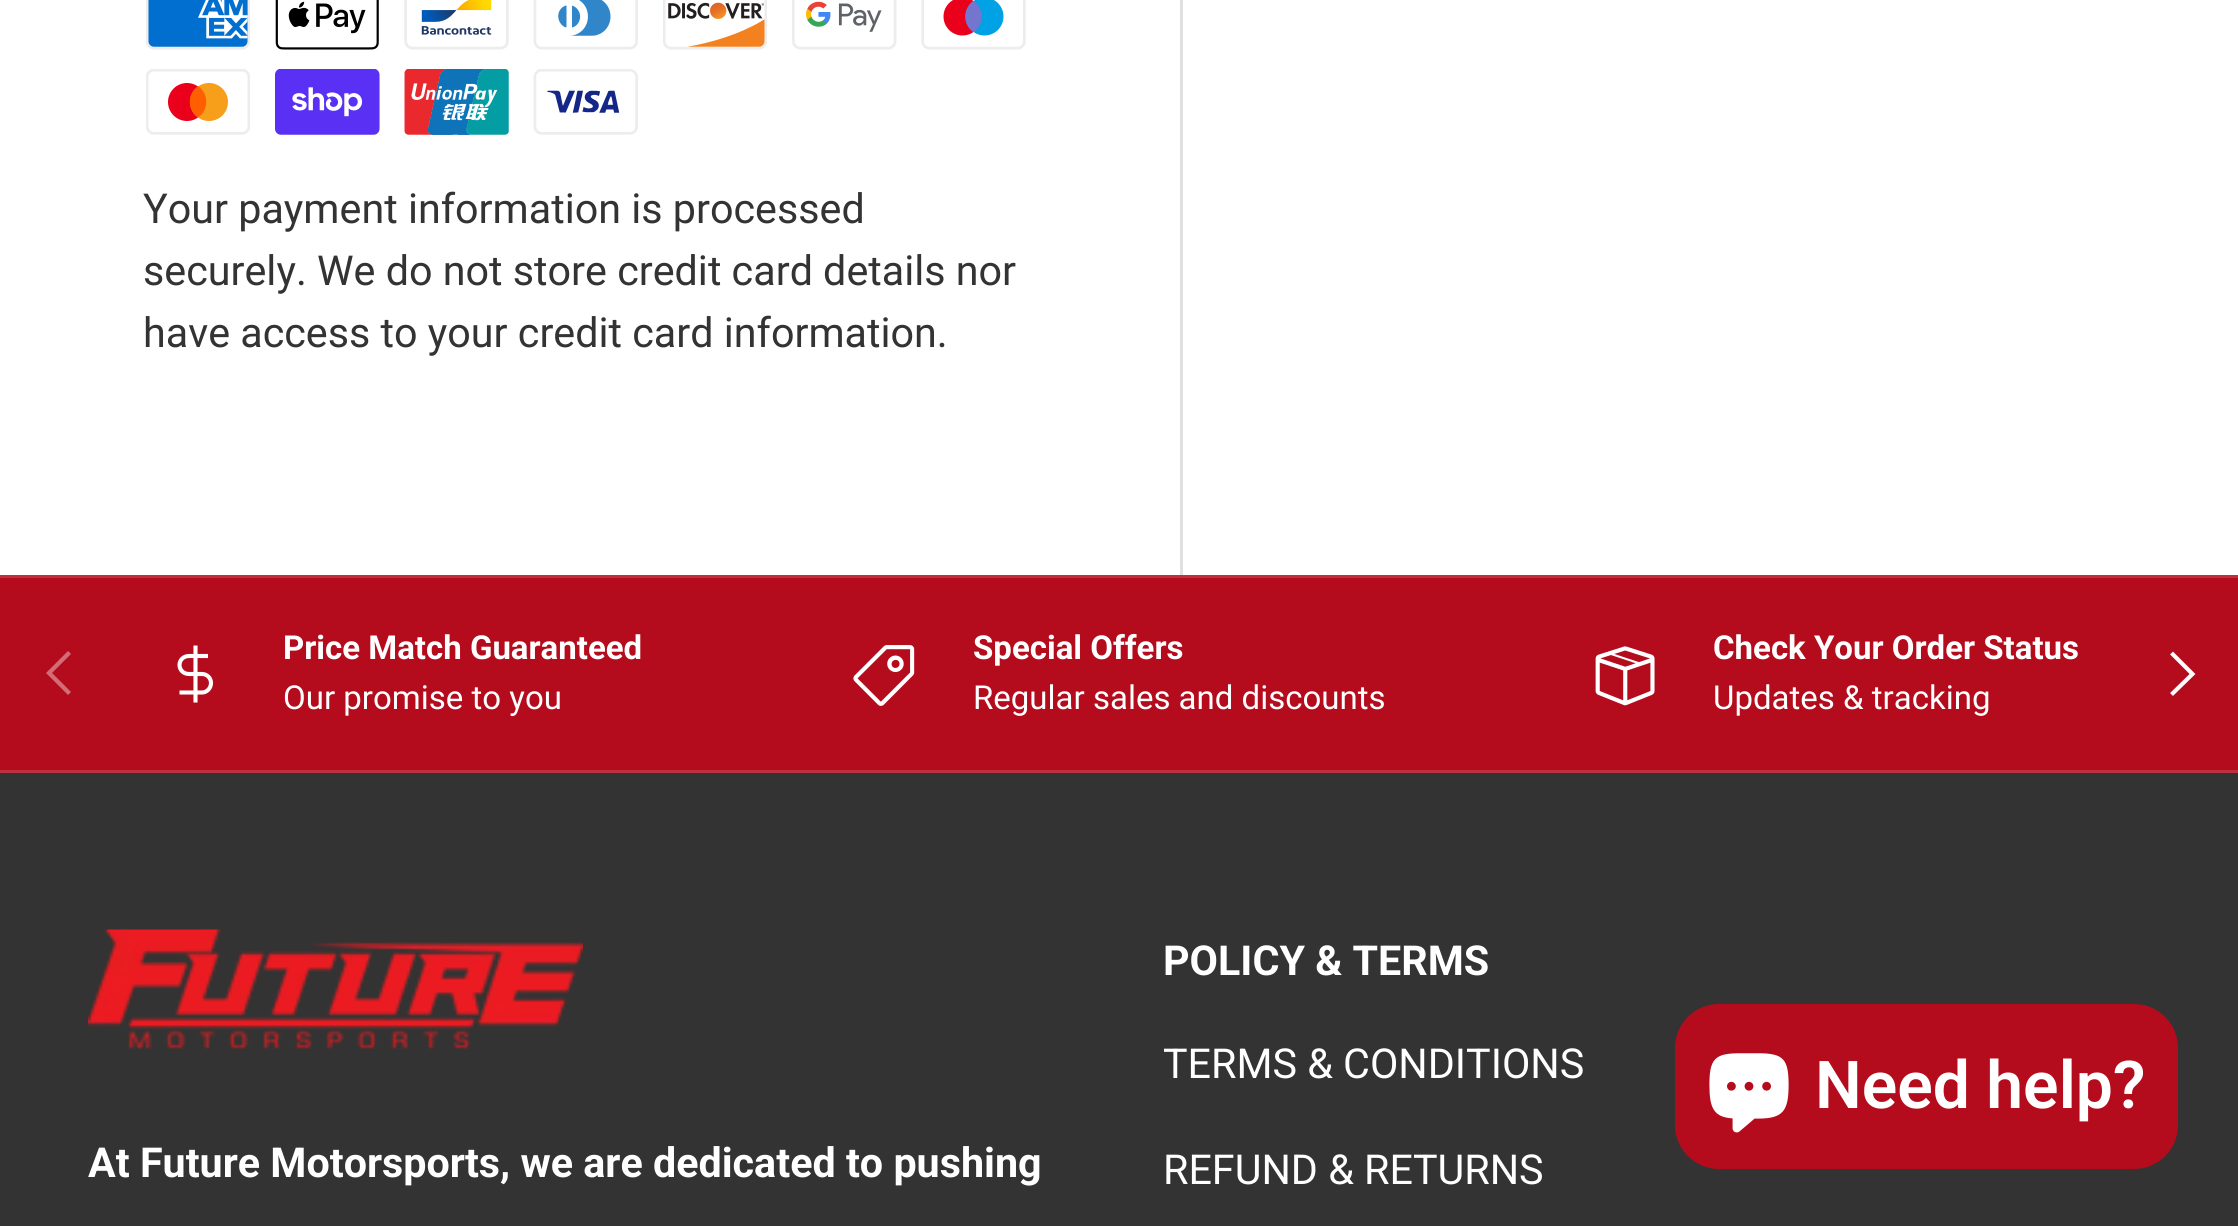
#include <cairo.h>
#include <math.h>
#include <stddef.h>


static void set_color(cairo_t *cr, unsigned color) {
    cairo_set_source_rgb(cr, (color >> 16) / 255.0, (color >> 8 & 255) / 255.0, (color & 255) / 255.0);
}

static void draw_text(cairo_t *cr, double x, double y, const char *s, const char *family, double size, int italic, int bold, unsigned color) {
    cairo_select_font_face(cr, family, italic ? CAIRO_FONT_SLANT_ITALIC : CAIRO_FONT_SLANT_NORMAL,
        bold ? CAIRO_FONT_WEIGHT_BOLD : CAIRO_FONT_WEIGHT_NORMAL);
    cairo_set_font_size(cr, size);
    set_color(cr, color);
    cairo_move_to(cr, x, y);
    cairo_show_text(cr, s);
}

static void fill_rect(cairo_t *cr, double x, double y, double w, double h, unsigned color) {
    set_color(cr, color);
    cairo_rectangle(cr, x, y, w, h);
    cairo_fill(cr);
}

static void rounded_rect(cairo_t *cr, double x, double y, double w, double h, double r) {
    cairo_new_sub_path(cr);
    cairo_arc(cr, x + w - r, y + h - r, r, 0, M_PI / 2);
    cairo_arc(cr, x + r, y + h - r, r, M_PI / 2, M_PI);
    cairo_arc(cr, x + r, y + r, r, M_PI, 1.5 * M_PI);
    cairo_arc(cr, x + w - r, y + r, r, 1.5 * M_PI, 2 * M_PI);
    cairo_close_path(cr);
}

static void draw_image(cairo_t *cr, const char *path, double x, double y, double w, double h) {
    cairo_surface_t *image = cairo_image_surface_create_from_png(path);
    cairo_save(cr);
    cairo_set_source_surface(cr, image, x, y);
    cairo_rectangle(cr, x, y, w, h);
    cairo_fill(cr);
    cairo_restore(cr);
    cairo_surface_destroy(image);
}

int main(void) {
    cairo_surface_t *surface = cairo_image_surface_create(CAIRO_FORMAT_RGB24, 2238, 1226);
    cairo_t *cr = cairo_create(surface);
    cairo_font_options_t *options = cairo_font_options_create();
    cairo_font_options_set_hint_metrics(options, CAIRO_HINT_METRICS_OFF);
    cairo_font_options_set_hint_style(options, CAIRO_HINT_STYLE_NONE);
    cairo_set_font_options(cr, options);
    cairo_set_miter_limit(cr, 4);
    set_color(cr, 0xFFFFFF);
    cairo_paint(cr);
    fill_rect(cr, 1180, 0, 3, 575, 0xE0E0E0);
    draw_image(cr, "assets/img1.png", 146, 0, 104, 50);
    draw_image(cr, "assets/img2.png", 275, 0, 104, 50);
    draw_image(cr, "assets/img3.png", 404, 0, 105, 50);
    draw_image(cr, "assets/img4.png", 533, 0, 105, 50);
    draw_image(cr, "assets/img5.png", 663, 0, 104, 50);
    draw_image(cr, "assets/img6.png", 792, 0, 105, 50);
    draw_image(cr, "assets/img7.png", 921, 0, 105, 50);
    draw_image(cr, "assets/img8.png", 146, 69, 104, 66);
    draw_image(cr, "assets/img9.png", 275, 69, 105, 66);
    draw_image(cr, "assets/img10.png", 404, 69, 105, 66);
    draw_image(cr, "assets/img11.png", 533, 69, 105, 66);
    draw_text(cr, 143, 223, "Your payment information is processed", "Roboto", 41.25, 0, 0, 0x333333);
    draw_text(cr, 143, 285, "securely. We do not store credit card details nor", "Roboto", 41.25, 0, 0, 0x333333);
    draw_text(cr, 143, 347, "have access to your credit card information.", "Roboto", 41.25, 0, 0, 0x333333);
    fill_rect(cr, 0, 578, 2238, 192, 0xB40C1C);
    fill_rect(cr, 0, 575, 2238, 3, 0xBF303E);
    fill_rect(cr, 0, 770, 2238, 3, 0xBF303E);
    cairo_new_path(cr);
    cairo_move_to(cr, 195.5, 645.5);
    cairo_line_to(cr, 195.5, 702.5);
    cairo_move_to(cr, 208, 656);
    cairo_line_to(cr, 189, 656);
    cairo_curve_to(cr, 183.5, 656, 179.5, 660, 179.5, 665);
    cairo_curve_to(cr, 179.5, 670, 183.5, 674, 189, 674);
    cairo_line_to(cr, 202, 674);
    cairo_curve_to(cr, 207, 674, 211, 678, 211, 683);
    cairo_curve_to(cr, 211, 688, 207, 692.5, 202, 692.5);
    cairo_line_to(cr, 179.5, 692.5);
    set_color(cr, 0xFFFFFF);
    cairo_set_line_width(cr, 4.1);
    cairo_stroke(cr);
    draw_text(cr, 283, 659, "Price Match Guaranteed", "Roboto", 33, 0, 1, 0xFFFFFF);
    draw_text(cr, 283, 709, "Our promise to you", "Roboto", 33, 0, 0, 0xFFFFFF);
    draw_image(cr, "assets/img12.png", 853, 645, 62, 61);
    draw_text(cr, 973, 659, "Special Offers", "Roboto", 33, 0, 1, 0xFFFFFF);
    draw_text(cr, 973, 709, "Regular sales and discounts", "Roboto", 33, 0, 0, 0xFFFFFF);
    draw_image(cr, "assets/img13.png", 1595, 646, 60, 60);
    draw_text(cr, 1713, 659, "Check Your Order Status", "Roboto", 33, 0, 1, 0xFFFFFF);
    draw_text(cr, 1713, 709, "Updates & tracking", "Roboto", 33, 0, 0, 0xFFFFFF);
    set_color(cr, 0xD26D77);
    cairo_new_path(cr);
    cairo_move_to(cr, 46, 673);
    cairo_line_to(cr, 68, 651);
    cairo_line_to(cr, 71, 654);
    cairo_line_to(cr, 52, 673);
    cairo_line_to(cr, 71, 692);
    cairo_line_to(cr, 68, 695);
    cairo_close_path(cr);
    cairo_fill(cr);
    cairo_new_path(cr);
    cairo_move_to(cr, 2171.5, 653);
    cairo_line_to(cr, 2192.5, 674);
    cairo_line_to(cr, 2171.5, 694.5);
    set_color(cr, 0xFFFFFF);
    cairo_stroke(cr);
    fill_rect(cr, 0, 773, 2238, 453, 0x333333);
    draw_image(cr, "assets/img14.png", 88, 929, 495, 120);
    draw_text(cr, 88, 1177, "At Future Motorsports, we are dedicated to pushing", "Roboto", 41.25, 0, 1, 0xFFFFFF);
    draw_text(cr, 1163, 975, "POLICY & TERMS", "Roboto", 41.25, 0, 1, 0xFFFFFF);
    draw_text(cr, 1163, 1078, "TERMS & CONDITIONS", "Roboto", 41.25, 0, 0, 0xFFFFFF);
    draw_text(cr, 1163, 1184, "REFUND & RETURNS", "Roboto", 41.25, 0, 0, 0xFFFFFF);
    set_color(cr, 0xB40C1C);
    rounded_rect(cr, 1675, 1004, 503, 165, 44);
    cairo_fill(cr);
    draw_image(cr, "assets/img15.png", 1709, 1053, 80, 80);
    draw_text(cr, 1815, 1108, "Need help?", "Roboto SemiBold", 66, 0, 0, 0xFFFFFF);
    cairo_surface_write_to_png(surface, "output.png");
    cairo_font_options_destroy(options);
    cairo_destroy(cr);
    cairo_surface_destroy(surface);
    return 0;
}
